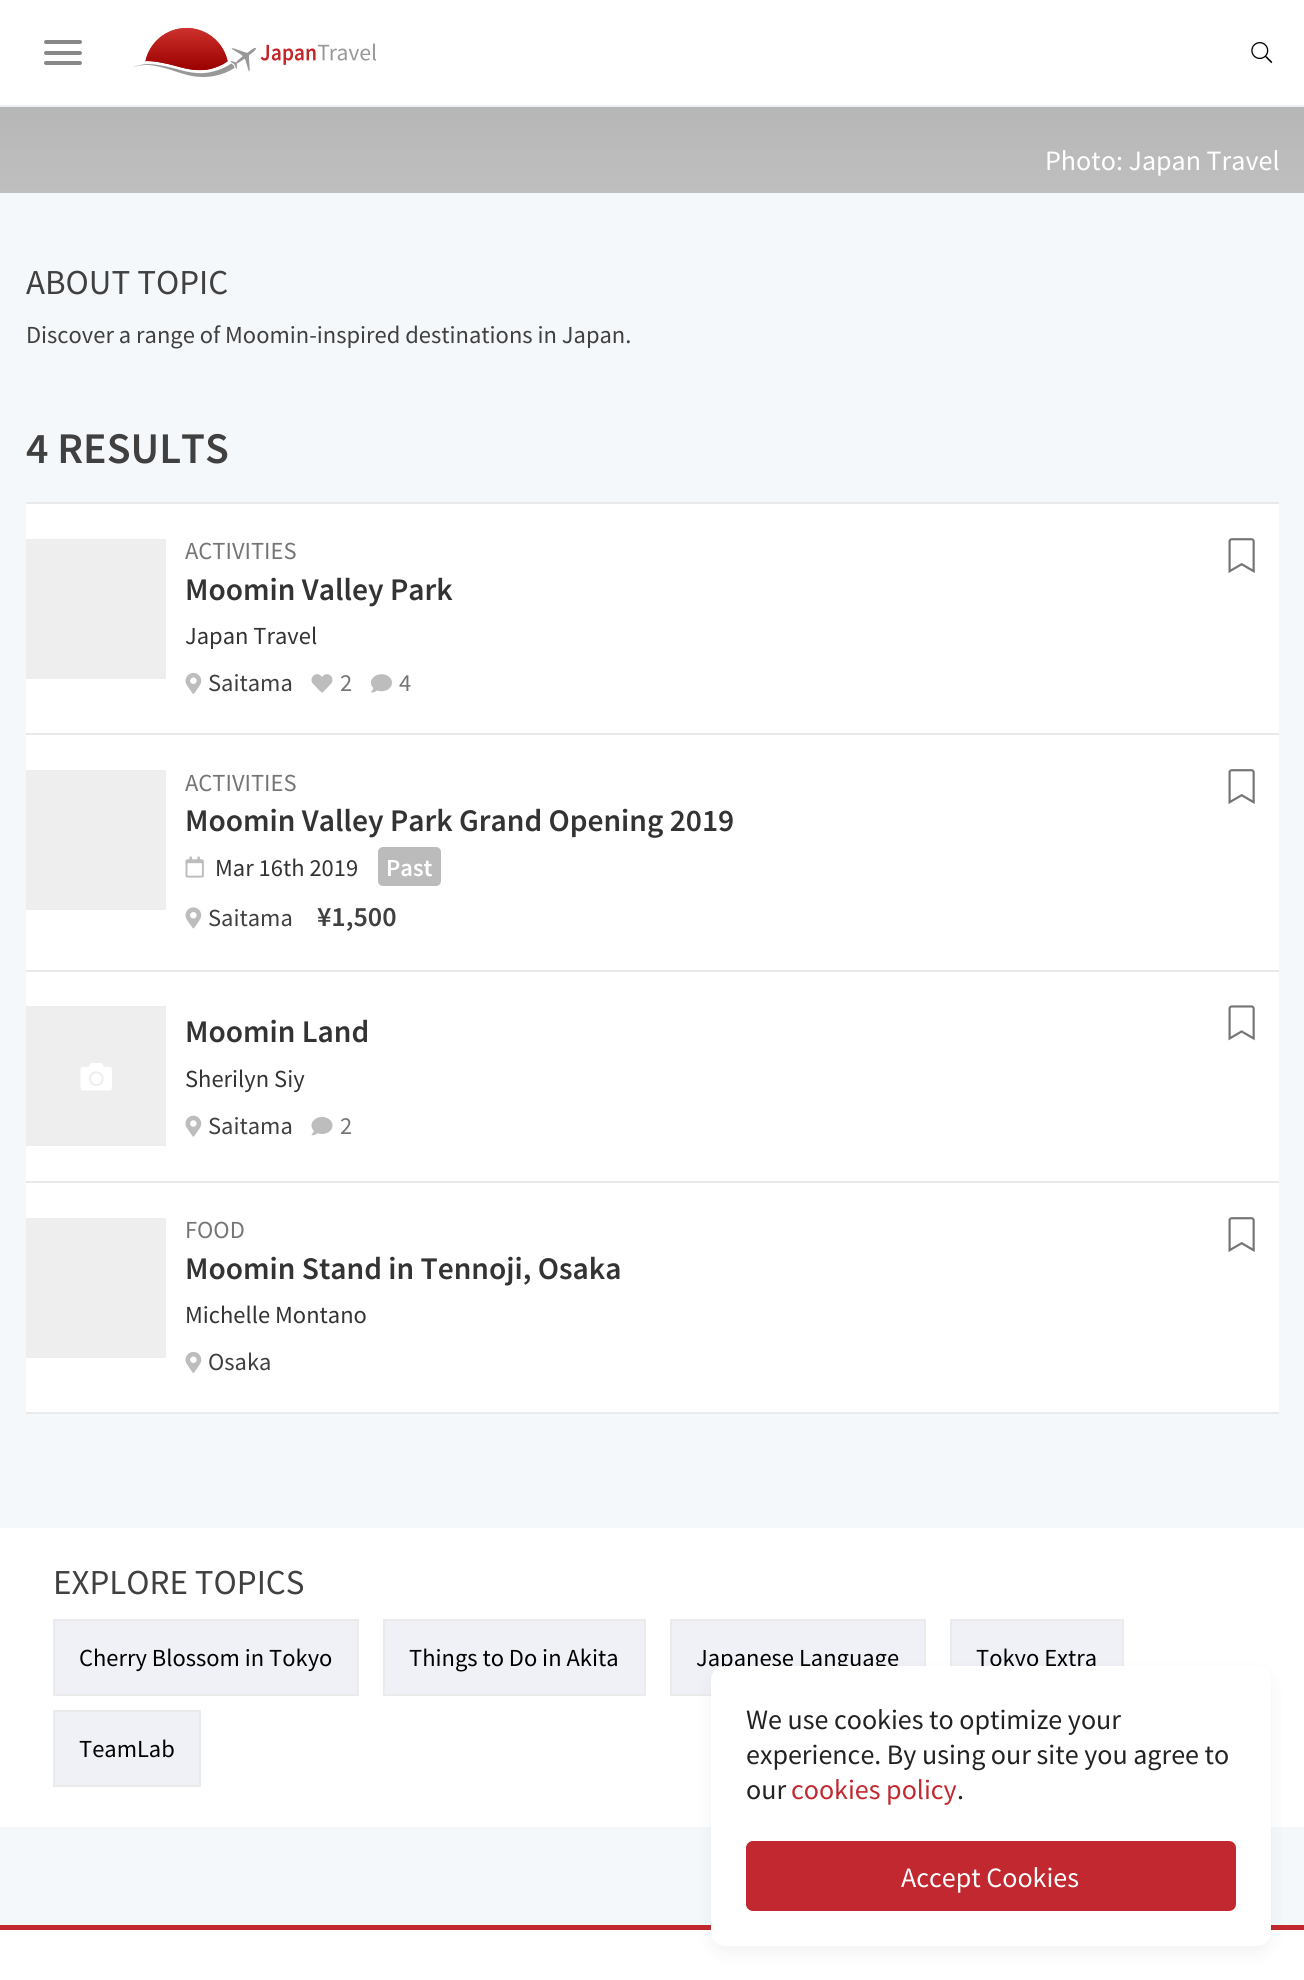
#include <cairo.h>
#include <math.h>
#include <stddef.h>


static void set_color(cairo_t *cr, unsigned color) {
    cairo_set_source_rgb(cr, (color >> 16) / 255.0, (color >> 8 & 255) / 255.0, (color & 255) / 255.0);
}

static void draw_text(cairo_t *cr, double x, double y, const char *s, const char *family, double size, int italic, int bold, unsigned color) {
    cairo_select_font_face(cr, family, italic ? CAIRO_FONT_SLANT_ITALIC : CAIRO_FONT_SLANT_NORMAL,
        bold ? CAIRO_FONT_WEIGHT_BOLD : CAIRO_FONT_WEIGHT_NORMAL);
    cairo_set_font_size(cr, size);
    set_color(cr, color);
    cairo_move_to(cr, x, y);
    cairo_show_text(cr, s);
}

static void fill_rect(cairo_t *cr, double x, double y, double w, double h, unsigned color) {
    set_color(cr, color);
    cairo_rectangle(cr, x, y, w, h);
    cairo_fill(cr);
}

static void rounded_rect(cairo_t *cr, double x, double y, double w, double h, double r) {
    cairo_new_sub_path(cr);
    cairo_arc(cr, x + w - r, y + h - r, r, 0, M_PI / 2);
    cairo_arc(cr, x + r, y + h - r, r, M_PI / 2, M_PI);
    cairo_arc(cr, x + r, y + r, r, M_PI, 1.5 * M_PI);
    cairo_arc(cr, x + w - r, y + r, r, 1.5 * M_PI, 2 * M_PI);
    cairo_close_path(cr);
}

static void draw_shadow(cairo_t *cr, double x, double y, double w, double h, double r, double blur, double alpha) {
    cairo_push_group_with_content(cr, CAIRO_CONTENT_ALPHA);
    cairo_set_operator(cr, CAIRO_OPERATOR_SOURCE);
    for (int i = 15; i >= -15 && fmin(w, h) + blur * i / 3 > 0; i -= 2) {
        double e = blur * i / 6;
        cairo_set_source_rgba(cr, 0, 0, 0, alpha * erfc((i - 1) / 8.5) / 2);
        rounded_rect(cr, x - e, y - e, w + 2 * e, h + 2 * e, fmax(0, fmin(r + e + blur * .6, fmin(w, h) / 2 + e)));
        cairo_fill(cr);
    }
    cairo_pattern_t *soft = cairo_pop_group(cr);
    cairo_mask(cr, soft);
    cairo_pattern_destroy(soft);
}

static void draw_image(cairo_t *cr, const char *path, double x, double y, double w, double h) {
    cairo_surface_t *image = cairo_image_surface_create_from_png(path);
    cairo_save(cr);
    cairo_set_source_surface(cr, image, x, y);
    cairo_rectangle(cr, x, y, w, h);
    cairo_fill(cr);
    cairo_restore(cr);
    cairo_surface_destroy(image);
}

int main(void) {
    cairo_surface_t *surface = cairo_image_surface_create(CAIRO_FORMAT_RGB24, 1304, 1980);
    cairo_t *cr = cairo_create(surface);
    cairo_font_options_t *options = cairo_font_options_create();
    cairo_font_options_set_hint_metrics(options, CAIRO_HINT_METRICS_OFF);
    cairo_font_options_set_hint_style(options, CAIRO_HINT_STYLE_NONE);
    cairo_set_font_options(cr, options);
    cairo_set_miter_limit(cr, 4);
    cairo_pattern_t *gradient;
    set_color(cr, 0xF5F8FA);
    cairo_paint(cr);
    fill_rect(cr, 0, 0, 1304, 105, 0xFFFFFF);
    fill_rect(cr, 0, 105, 1304, 2, 0xEDF0F4);
    set_color(cr, 0x888888);
    rounded_rect(cr, 44, 40, 38, 4, 2);
    cairo_fill(cr);
    rounded_rect(cr, 44, 51, 38, 4, 2);
    cairo_fill(cr);
    rounded_rect(cr, 44, 61, 38, 4, 2);
    cairo_fill(cr);
    draw_image(cr, "assets/img1.png", 132, 28, 245, 49);
    draw_image(cr, "assets/img2.png", 1251, 42, 22, 21);
    gradient = cairo_pattern_create_linear(653, -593, 653, 193);
    cairo_pattern_add_color_stop_rgba(gradient, 0.5, 0.596, 0.596, 0.596, 1);
    cairo_pattern_add_color_stop_rgba(gradient, 1, 0.749, 0.749, 0.749, 1);
    cairo_set_source(cr, gradient);
    cairo_pattern_destroy(gradient);
    cairo_rectangle(cr, 0, 107, 1304, 86);
    cairo_fill(cr);
    draw_text(cr, 1045, 170, "Photo: Japan Travel", "Source Sans Pro", 28, 0, 0, 0xFFFFFF);
    draw_text(cr, 26, 294, "ABOUT TOPIC", "Source Sans Pro", 35, 0, 0, 0x404040);
    draw_text(cr, 26, 343, "Discover a range of Moomin-inspired destinations in Japan.", "Source Sans Pro", 24.5, 0, 0, 0x404040);
    draw_text(cr, 26, 463, "4 RESULTS", "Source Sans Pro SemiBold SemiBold", 43.75, 0, 0, 0x404040);
    fill_rect(cr, 26, 504, 1253, 229, 0xFFFFFF);
    fill_rect(cr, 26, 502, 1253, 2, 0xE9E9E9);
    fill_rect(cr, 26, 539, 140, 140, 0xEEEEEE);
    draw_text(cr, 185, 559, "ACTIVITIES", "Source Sans Pro", 24.5, 0, 0, 0x757575);
    draw_image(cr, "assets/img3.png", 1228, 538, 27, 35);
    draw_text(cr, 185, 600, "Moomin Valley Park", "Source Sans Pro SemiBold SemiBold", 31.5, 0, 0, 0x333333);
    draw_text(cr, 185, 644, "Japan Travel", "Source Sans Pro", 24.5, 0, 0, 0x333333);
    draw_image(cr, "assets/img4.png", 185, 672, 17, 22);
    draw_text(cr, 208, 691, "Saitama", "Source Sans Pro", 24.5, 0, 0, 0x404040);
    draw_image(cr, "assets/img5.png", 311, 674, 22, 19);
    draw_text(cr, 340, 691, "2", "Source Sans Pro", 24.5, 0, 0, 0x757575);
    draw_image(cr, "assets/img6.png", 371, 674, 21, 19);
    draw_text(cr, 399, 691, "4", "Source Sans Pro", 24.5, 0, 0, 0x757575);
    fill_rect(cr, 26, 735, 1253, 235, 0xFFFFFF);
    fill_rect(cr, 26, 733, 1253, 2, 0xE9E9E9);
    fill_rect(cr, 26, 770, 140, 140, 0xEEEEEE);
    draw_text(cr, 185, 791, "ACTIVITIES", "Source Sans Pro", 24.5, 0, 0, 0x757575);
    draw_image(cr, "assets/img3.png", 1228, 769, 27, 35);
    draw_text(cr, 185, 831, "Moomin Valley Park Grand Opening 2019", "Source Sans Pro SemiBold SemiBold", 31.5, 0, 0, 0x333333);
    draw_image(cr, "assets/img7.png", 185, 856, 19, 22);
    draw_text(cr, 215, 876, "Mar 16th 2019", "Source Sans Pro", 24.5, 0, 0, 0x333333);
    set_color(cr, 0xBBBBBB);
    rounded_rect(cr, 378, 847, 63, 39, 5);
    cairo_fill(cr);
    draw_text(cr, 386, 876, "Past", "Source Sans Pro SemiBold SemiBold", 24.5, 0, 0, 0xFFFFFF);
    draw_image(cr, "assets/img8.png", 185, 907, 17, 22);
    draw_text(cr, 208, 926, "Saitama", "Source Sans Pro", 24.5, 0, 0, 0x404040);
    draw_text(cr, 317, 926, "¥1,500", "Source Sans Pro SemiBold SemiBold", 28, 0, 0, 0x404040);
    fill_rect(cr, 26, 972, 1253, 209, 0xFFFFFF);
    fill_rect(cr, 26, 970, 1253, 2, 0xE9E9E9);
    fill_rect(cr, 26, 1006, 140, 140, 0xEEEEEE);
    draw_image(cr, "assets/img9.png", 80, 1063, 32, 28);
    draw_text(cr, 185, 1042, "Moomin Land", "Source Sans Pro SemiBold SemiBold", 31.5, 0, 0, 0x333333);
    draw_image(cr, "assets/img10.png", 1228, 1005, 27, 36);
    draw_text(cr, 185, 1087, "Sherilyn Siy", "Source Sans Pro", 24.5, 0, 0, 0x333333);
    draw_image(cr, "assets/img11.png", 185, 1115, 17, 22);
    draw_text(cr, 208, 1134, "Saitama", "Source Sans Pro", 24.5, 0, 0, 0x404040);
    draw_image(cr, "assets/img12.png", 311, 1117, 22, 19);
    draw_text(cr, 340, 1134, "2", "Source Sans Pro", 24.5, 0, 0, 0x757575);
    fill_rect(cr, 26, 1183, 1253, 229, 0xFFFFFF);
    fill_rect(cr, 26, 1181, 1253, 2, 0xE9E9E9);
    fill_rect(cr, 26, 1412, 1253, 2, 0xE9E9E9);
    fill_rect(cr, 26, 1218, 140, 140, 0xEEEEEE);
    draw_text(cr, 185, 1238, "FOOD", "Source Sans Pro", 24.5, 0, 0, 0x757575);
    draw_image(cr, "assets/img3.png", 1228, 1217, 27, 35);
    draw_text(cr, 185, 1279, "Moomin Stand in Tennoji, Osaka", "Source Sans Pro SemiBold SemiBold", 31.5, 0, 0, 0x333333);
    draw_text(cr, 185, 1323, "Michelle Montano", "Source Sans Pro", 24.5, 0, 0, 0x333333);
    draw_image(cr, "assets/img4.png", 185, 1351, 17, 22);
    draw_text(cr, 208, 1370, "Osaka", "Source Sans Pro", 24.5, 0, 0, 0x404040);
    fill_rect(cr, 0, 1528, 1304, 299, 0xFFFFFF);
    draw_text(cr, 53, 1594, "EXPLORE TOPICS", "Source Sans Pro", 35, 0, 0, 0x404040);
    set_color(cr, 0xEFF1F6);
    cairo_rectangle(cr, 54, 1620, 304, 75);
    cairo_fill_preserve(cr);
    set_color(cr, 0xEBEBEB);
    cairo_stroke(cr);
    draw_text(cr, 79, 1666, "Cherry Blossom in Tokyo", "Source Sans Pro", 24.5, 0, 0, 0x000000);
    set_color(cr, 0xEFF1F6);
    cairo_rectangle(cr, 384, 1620, 261, 75);
    cairo_fill_preserve(cr);
    set_color(cr, 0xEBEBEB);
    cairo_stroke(cr);
    draw_text(cr, 409, 1666, "Things to Do in Akita", "Source Sans Pro", 24.5, 0, 0, 0x000000);
    set_color(cr, 0xEFF1F6);
    cairo_rectangle(cr, 671, 1620, 254, 75);
    cairo_fill_preserve(cr);
    set_color(cr, 0xEBEBEB);
    cairo_stroke(cr);
    draw_text(cr, 696, 1666, "Japanese Language", "Source Sans Pro", 24.5, 0, 0, 0x000000);
    fill_rect(cr, 952, 1621, 170, 45, 0xEFF1F6);
    cairo_rectangle(cr, 951, 1620, 172, 75);
    set_color(cr, 0xEBEBEB);
    cairo_stroke(cr);
    draw_text(cr, 976, 1666, "Tokyo Extra", "Source Sans Pro", 24.5, 0, 0, 0x000000);
    set_color(cr, 0xEFF1F6);
    cairo_rectangle(cr, 54, 1711, 146, 75);
    cairo_fill_preserve(cr);
    set_color(cr, 0xEBEBEB);
    cairo_stroke(cr);
    draw_text(cr, 79, 1757, "TeamLab", "Source Sans Pro", 24.5, 0, 0, 0x000000);
    fill_rect(cr, 0, 1930, 1304, 50, 0xFFFFFF);
    fill_rect(cr, 0, 1925, 1304, 5, 0xC1282F);
    set_color(cr, 0x000000);
    draw_shadow(cr, 711, 1673, 560, 280, 14, 8, 0.05);
    set_color(cr, 0xFFFFFF);
    rounded_rect(cr, 711, 1666, 560, 280, 14);
    cairo_fill(cr);
    draw_text(cr, 746, 1729, "We use cookies to optimize your", "Source Sans Pro", 28, 0, 0, 0x222222);
    draw_text(cr, 746, 1764, "experience. By using our site you agree to", "Source Sans Pro", 28, 0, 0, 0x222222);
    draw_text(cr, 746, 1799, "our", "Source Sans Pro", 28, 0, 0, 0x222222);
    draw_text(cr, 791, 1799, "cookies policy", "Source Sans Pro", 28, 0, 0, 0xC1282F);
    draw_text(cr, 957, 1799, ".", "Source Sans Pro", 28, 0, 0, 0x222222);
    set_color(cr, 0xC1282F);
    rounded_rect(cr, 746, 1841, 490, 70, 7);
    cairo_fill(cr);
    draw_text(cr, 901, 1887, "Accept Cookies", "Source Sans Pro", 28, 0, 0, 0xFFFFFF);
    cairo_surface_write_to_png(surface, "output.png");
    cairo_font_options_destroy(options);
    cairo_destroy(cr);
    cairo_surface_destroy(surface);
    return 0;
}
